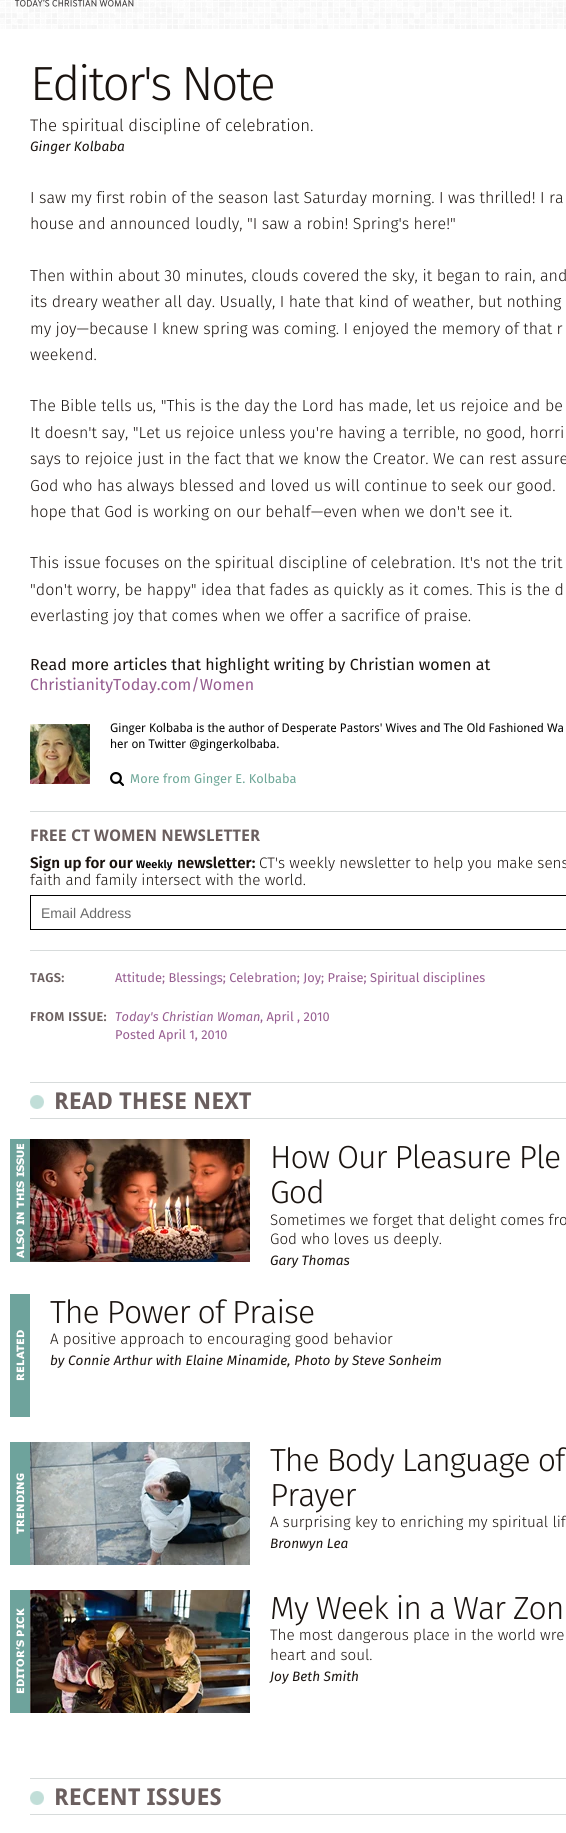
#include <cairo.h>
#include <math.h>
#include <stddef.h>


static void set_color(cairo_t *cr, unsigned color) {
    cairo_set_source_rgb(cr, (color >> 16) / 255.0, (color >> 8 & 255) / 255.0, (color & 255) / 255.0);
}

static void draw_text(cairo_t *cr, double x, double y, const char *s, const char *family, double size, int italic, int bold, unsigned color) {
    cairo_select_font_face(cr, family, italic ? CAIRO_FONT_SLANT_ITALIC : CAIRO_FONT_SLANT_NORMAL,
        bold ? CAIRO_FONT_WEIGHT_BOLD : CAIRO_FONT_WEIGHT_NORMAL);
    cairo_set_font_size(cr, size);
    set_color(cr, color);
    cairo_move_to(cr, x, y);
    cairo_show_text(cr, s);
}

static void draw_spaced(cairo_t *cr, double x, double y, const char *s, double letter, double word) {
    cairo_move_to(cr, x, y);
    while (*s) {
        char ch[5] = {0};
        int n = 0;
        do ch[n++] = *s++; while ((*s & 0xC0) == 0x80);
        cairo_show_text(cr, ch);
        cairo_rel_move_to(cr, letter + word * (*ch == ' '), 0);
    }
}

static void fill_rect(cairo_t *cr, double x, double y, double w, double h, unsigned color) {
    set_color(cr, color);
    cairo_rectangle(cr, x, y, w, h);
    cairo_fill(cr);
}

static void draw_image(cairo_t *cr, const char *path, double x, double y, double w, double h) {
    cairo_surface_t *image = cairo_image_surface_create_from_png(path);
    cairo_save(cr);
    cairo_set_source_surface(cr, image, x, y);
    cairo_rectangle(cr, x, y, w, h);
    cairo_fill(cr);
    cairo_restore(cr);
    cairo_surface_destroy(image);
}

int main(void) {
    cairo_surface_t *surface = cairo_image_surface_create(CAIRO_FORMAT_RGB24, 566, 1833);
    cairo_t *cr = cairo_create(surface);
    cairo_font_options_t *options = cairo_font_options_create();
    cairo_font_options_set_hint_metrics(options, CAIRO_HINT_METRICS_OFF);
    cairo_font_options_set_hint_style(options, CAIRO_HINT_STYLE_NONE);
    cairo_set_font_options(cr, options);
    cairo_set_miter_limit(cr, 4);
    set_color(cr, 0xFFFFFF);
    cairo_paint(cr);
    draw_image(cr, "assets/img1.png", 0, 0, 566, 29);
    draw_image(cr, "assets/img2.png", 15, 0, 119, 7);
    cairo_select_font_face(cr, "Fira Sans Light", CAIRO_FONT_SLANT_NORMAL, CAIRO_FONT_WEIGHT_NORMAL);
    cairo_set_font_size(cr, 48);
    set_color(cr, 0x1A130F);
    draw_spaced(cr, 30, 100, "Editor's Note", -2.4, 0);
    draw_text(cr, 30, 131, "The spiritual discipline of celebration.", "Fira Sans Light", 16.75, 0, 0, 0x1A130F);
    draw_text(cr, 30, 151, "Ginger Kolbaba", "Fira Sans", 13.6, 1, 0, 0x1A130F);
    draw_text(cr, 30, 203, "I saw my first robin of the season last Saturday morning. I was thrilled! I ra", "Fira Sans Light", 16, 0, 0, 0x1A130F);
    draw_text(cr, 30, 229, "house and announced loudly, \"I saw a robin! Spring's here!\"", "Fira Sans Light", 16, 0, 0, 0x1A130F);
    draw_text(cr, 30, 281, "Then within about 30 minutes, clouds covered the sky, it began to rain, and", "Fira Sans Light", 16, 0, 0, 0x1A130F);
    draw_text(cr, 30, 307, "its dreary weather all day. Usually, I hate that kind of weather, but nothing", "Fira Sans Light", 16, 0, 0, 0x1A130F);
    draw_text(cr, 30, 334, "my joy—because I knew spring was coming. I enjoyed the memory of that r", "Fira Sans Light", 16, 0, 0, 0x1A130F);
    draw_text(cr, 30, 360, "weekend.", "Fira Sans Light", 16, 0, 0, 0x1A130F);
    draw_text(cr, 30, 411, "The Bible tells us, \"This is the day the Lord has made, let us rejoice and be", "Fira Sans Light", 16, 0, 0, 0x1A130F);
    draw_text(cr, 30, 438, "It doesn't say, \"Let us rejoice unless you're having a terrible, no good, horri", "Fira Sans Light", 16, 0, 0, 0x1A130F);
    draw_text(cr, 30, 464, "says to rejoice just in the fact that we know the Creator. We can rest assure", "Fira Sans Light", 16, 0, 0, 0x1A130F);
    draw_text(cr, 30, 491, "God who has always blessed and loved us will continue to seek our good.", "Fira Sans Light", 16, 0, 0, 0x1A130F);
    draw_text(cr, 30, 517, "hope that God is working on our behalf—even when we don't see it.", "Fira Sans Light", 16, 0, 0, 0x1A130F);
    draw_text(cr, 30, 568, "This issue focuses on the spiritual discipline of celebration. It's not the trit", "Fira Sans Light", 16, 0, 0, 0x1A130F);
    draw_text(cr, 30, 595, "\"don't worry, be happy\" idea that fades as quickly as it comes. This is the d", "Fira Sans Light", 16, 0, 0, 0x1A130F);
    draw_text(cr, 30, 621, "everlasting joy that comes when we offer a sacrifice of praise.", "Fira Sans Light", 16, 0, 0, 0x1A130F);
    draw_text(cr, 30, 670, "Read more articles that highlight writing by Christian women at", "Fira Sans", 16, 0, 0, 0x1A130F);
    draw_text(cr, 30, 690, "ChristianityToday.com/Women", "Fira Sans", 16, 0, 0, 0x965D90);
    draw_image(cr, "assets/img3.png", 30, 724, 60, 60);
    draw_text(cr, 110, 732, "Ginger Kolbaba is the author of Desperate Pastors' Wives and The Old Fashioned Wa", "Droid Sans", 12, 0, 0, 0x000000);
    draw_text(cr, 110, 748, "her on Twitter @gingerkolbaba.", "Droid Sans", 12, 0, 0, 0x000000);
    draw_image(cr, "assets/img4.png", 110, 772, 14, 14);
    draw_text(cr, 130, 783, "More from Ginger E. Kolbaba", "Fira Sans", 12.8, 0, 0, 0x6DA697);
    fill_rect(cr, 30, 811, 536, 1, 0xD7DBDB);
    draw_text(cr, 30, 841, "FREE CT WOMEN NEWSLETTER", "Droid Sans", 16, 0, 1, 0x6B5F5F);
    draw_text(cr, 30, 868, "Sign up for our", "Fira Sans SemiBold", 15.2, 0, 0, 0x1A130F);
    draw_text(cr, 136, 868, "Weekly", "Fira Sans SemiBold", 11, 0, 0, 0x000000);
    draw_text(cr, 177, 868, "newsletter:", "Fira Sans SemiBold", 15.2, 0, 0, 0x1A130F);
    draw_text(cr, 259, 868, "CT's weekly newsletter to help you make sens", "Fira Sans Light", 15.2, 0, 0, 0x1A130F);
    draw_text(cr, 30, 885, "faith and family intersect with the world.", "Fira Sans Light", 15.2, 0, 0, 0x1A130F);
    cairo_rectangle(cr, 30.5, 895.5, 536, 34);
    set_color(cr, 0x000000);
    cairo_set_line_width(cr, 1);
    cairo_stroke(cr);
    draw_text(cr, 41, 918, "Email Address", "Liberation Sans", 14, 0, 0, 0x696969);
    fill_rect(cr, 30, 950, 536, 1, 0xD7DBDB);
    cairo_select_font_face(cr, "Fira Sans SemiBold", CAIRO_FONT_SLANT_NORMAL, CAIRO_FONT_WEIGHT_NORMAL);
    cairo_set_font_size(cr, 12.8);
    set_color(cr, 0x6B5F5F);
    draw_spaced(cr, 30, 982, "TAGS:", 0.4, 0);
    draw_text(cr, 115, 982, "Attitude; Blessings; Celebration; Joy; Praise; Spiritual disciplines", "Fira Sans", 12.8, 0, 0, 0x965D90);
    cairo_select_font_face(cr, "Fira Sans SemiBold", CAIRO_FONT_SLANT_NORMAL, CAIRO_FONT_WEIGHT_NORMAL);
    set_color(cr, 0x6B5F5F);
    draw_spaced(cr, 30, 1021, "FROM ISSUE:", 0.4, 0);
    draw_text(cr, 115, 1021, "Today's Christian Woman", "Fira Sans", 12.8, 1, 0, 0x965D90);
    draw_text(cr, 260, 1021, ", April , 2010", "Fira Sans", 12.8, 0, 0, 0x965D90);
    draw_text(cr, 115, 1039, "Posted April 1, 2010", "Fira Sans", 12.8, 0, 0, 0x965D90);
    fill_rect(cr, 30, 1082, 536, 1, 0xD7DBDB);
    fill_rect(cr, 30, 1118, 536, 1, 0xD7DBDB);
    draw_image(cr, "assets/img5.png", 30, 1095, 14, 14);
    draw_text(cr, 54, 1109, "READ THESE NEXT", "Droid Sans", 23.25, 0, 1, 0x6B5F5F);
    draw_image(cr, "assets/img6.png", 10, 1139, 20, 123);
    draw_image(cr, "assets/img7.png", 30, 1139, 220, 123);
    cairo_select_font_face(cr, "Fira Sans Light", CAIRO_FONT_SLANT_NORMAL, CAIRO_FONT_WEIGHT_NORMAL);
    cairo_set_font_size(cr, 32);
    set_color(cr, 0x1A130F);
    draw_spaced(cr, 270, 1168, "How Our Pleasure Ple", -1, 0);
    draw_spaced(cr, 270, 1203, "God", -1, 0);
    draw_text(cr, 270, 1225, "Sometimes we forget that delight comes fro", "Fira Sans Light", 15.2, 0, 0, 0x1A130F);
    draw_text(cr, 270, 1244, "God who loves us deeply.", "Fira Sans Light", 15.2, 0, 0, 0x1A130F);
    draw_text(cr, 270, 1265, "Gary Thomas", "Fira Sans", 13.6, 1, 0, 0x1A130F);
    draw_image(cr, "assets/img8.png", 10, 1294, 20, 123);
    cairo_select_font_face(cr, "Fira Sans Light", CAIRO_FONT_SLANT_NORMAL, CAIRO_FONT_WEIGHT_NORMAL);
    cairo_set_font_size(cr, 32);
    draw_spaced(cr, 50, 1323, "The Power of Praise", -1, 0);
    draw_text(cr, 50, 1344, "A positive approach to encouraging good behavior", "Fira Sans Light", 15.2, 0, 0, 0x1A130F);
    draw_text(cr, 50, 1365, "by Connie Arthur with Elaine Minamide, Photo by Steve Sonheim", "Fira Sans", 13.6, 1, 0, 0x1A130F);
    draw_image(cr, "assets/img9.png", 10, 1442, 20, 123);
    draw_image(cr, "assets/img10.png", 30, 1442, 220, 123);
    cairo_select_font_face(cr, "Fira Sans Light", CAIRO_FONT_SLANT_NORMAL, CAIRO_FONT_WEIGHT_NORMAL);
    cairo_set_font_size(cr, 32);
    draw_spaced(cr, 270, 1471, "The Body Language of", -1, 0);
    draw_spaced(cr, 270, 1506, "Prayer", -1, 0);
    draw_text(cr, 270, 1527, "A surprising key to enriching my spiritual lif", "Fira Sans Light", 15.2, 0, 0, 0x1A130F);
    draw_text(cr, 270, 1548, "Bronwyn Lea", "Fira Sans", 13.6, 1, 0, 0x1A130F);
    draw_image(cr, "assets/img11.png", 10, 1590, 20, 123);
    draw_image(cr, "assets/img12.png", 30, 1590, 220, 123);
    cairo_select_font_face(cr, "Fira Sans Light", CAIRO_FONT_SLANT_NORMAL, CAIRO_FONT_WEIGHT_NORMAL);
    cairo_set_font_size(cr, 32);
    draw_spaced(cr, 270, 1619, "My Week in a War Zon", -1, 0);
    draw_text(cr, 270, 1640, "The most dangerous place in the world wre", "Fira Sans Light", 15.2, 0, 0, 0x1A130F);
    draw_text(cr, 270, 1660, "heart and soul.", "Fira Sans Light", 15.2, 0, 0, 0x1A130F);
    draw_text(cr, 270, 1681, "Joy Beth Smith", "Fira Sans", 13.6, 1, 0, 0x1A130F);
    fill_rect(cr, 30, 1778, 536, 1, 0xD7DBDB);
    fill_rect(cr, 30, 1814, 536, 1, 0xD7DBDB);
    draw_image(cr, "assets/img5.png", 30, 1791, 14, 14);
    draw_text(cr, 54, 1805, "RECENT ISSUES", "Droid Sans", 23.25, 0, 1, 0x6B5F5F);
    cairo_surface_write_to_png(surface, "output.png");
    cairo_font_options_destroy(options);
    cairo_destroy(cr);
    cairo_surface_destroy(surface);
    return 0;
}
